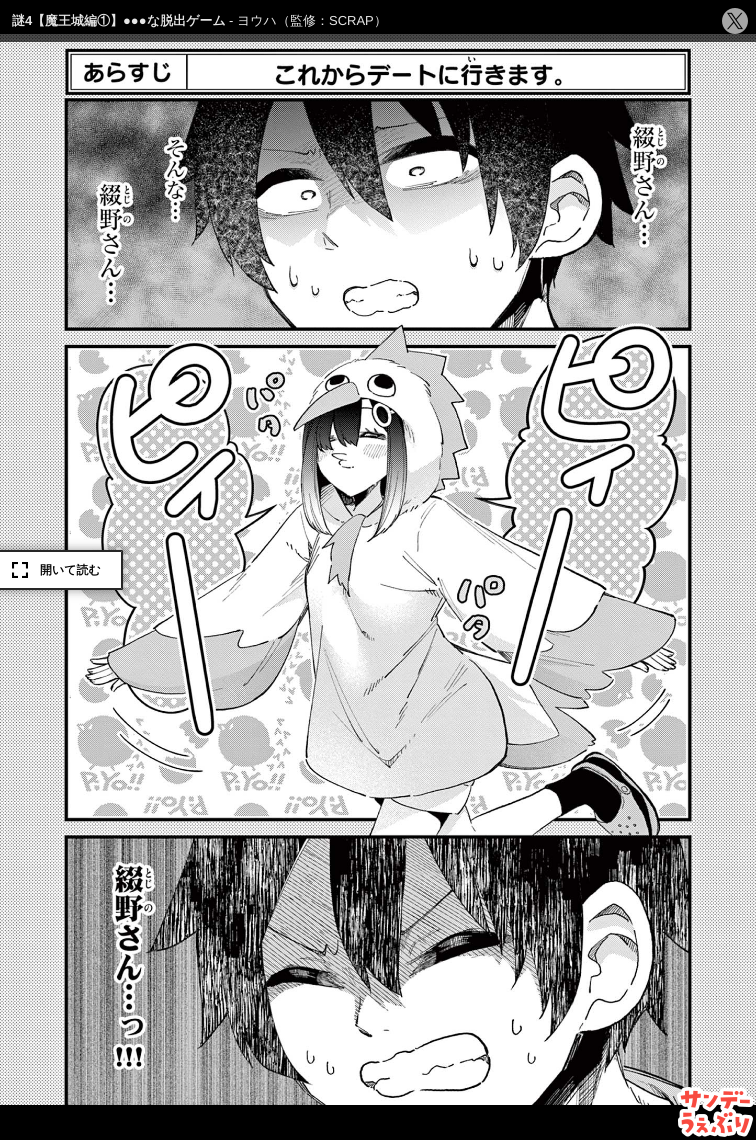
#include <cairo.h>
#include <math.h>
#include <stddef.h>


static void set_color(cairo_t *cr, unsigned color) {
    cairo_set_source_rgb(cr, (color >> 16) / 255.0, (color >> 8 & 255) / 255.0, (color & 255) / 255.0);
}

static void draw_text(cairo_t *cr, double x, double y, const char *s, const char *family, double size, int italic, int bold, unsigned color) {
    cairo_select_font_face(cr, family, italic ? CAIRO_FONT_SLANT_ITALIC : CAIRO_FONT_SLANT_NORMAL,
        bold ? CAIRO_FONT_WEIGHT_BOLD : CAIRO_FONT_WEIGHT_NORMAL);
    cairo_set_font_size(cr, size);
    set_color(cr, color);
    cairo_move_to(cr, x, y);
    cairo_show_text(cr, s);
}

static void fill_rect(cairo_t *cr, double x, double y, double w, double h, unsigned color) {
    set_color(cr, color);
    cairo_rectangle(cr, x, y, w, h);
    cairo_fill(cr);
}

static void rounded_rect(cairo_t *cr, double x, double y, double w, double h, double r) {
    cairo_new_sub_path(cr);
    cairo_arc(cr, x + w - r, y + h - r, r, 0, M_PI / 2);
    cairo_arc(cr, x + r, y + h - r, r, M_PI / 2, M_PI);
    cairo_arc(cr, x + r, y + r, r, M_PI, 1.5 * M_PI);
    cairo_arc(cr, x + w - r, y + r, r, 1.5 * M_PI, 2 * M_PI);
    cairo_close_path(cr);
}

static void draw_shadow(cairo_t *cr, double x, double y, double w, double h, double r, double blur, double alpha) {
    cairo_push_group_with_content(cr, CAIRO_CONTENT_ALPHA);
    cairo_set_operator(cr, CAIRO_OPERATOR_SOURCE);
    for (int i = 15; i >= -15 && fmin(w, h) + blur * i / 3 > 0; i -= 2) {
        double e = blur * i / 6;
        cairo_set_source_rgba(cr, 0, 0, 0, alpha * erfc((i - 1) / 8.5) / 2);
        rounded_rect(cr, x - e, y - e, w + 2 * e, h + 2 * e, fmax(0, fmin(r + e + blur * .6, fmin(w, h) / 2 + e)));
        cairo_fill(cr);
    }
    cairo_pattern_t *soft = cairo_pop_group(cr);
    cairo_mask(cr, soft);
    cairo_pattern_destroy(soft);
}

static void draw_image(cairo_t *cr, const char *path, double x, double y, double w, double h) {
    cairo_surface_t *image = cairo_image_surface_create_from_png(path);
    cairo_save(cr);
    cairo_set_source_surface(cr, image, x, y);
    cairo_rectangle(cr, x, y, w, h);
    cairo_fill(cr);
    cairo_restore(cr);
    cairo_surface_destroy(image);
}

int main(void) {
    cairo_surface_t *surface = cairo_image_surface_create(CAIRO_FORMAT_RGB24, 756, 1140);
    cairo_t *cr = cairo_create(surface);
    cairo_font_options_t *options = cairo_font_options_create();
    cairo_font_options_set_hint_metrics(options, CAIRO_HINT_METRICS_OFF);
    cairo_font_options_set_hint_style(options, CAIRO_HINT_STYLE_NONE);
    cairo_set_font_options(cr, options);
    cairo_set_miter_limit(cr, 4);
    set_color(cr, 0x000000);
    cairo_paint(cr);
    draw_image(cr, "assets/img2.png", 0, 34, 756, 1071);
    cairo_set_source_rgba(cr, 0, 0, 0, 0.7);
    cairo_rectangle(cr, 0, 34, 756, 8);
    cairo_fill(cr);
    draw_text(cr, 12, 25, "謎", "WenQuanYi Zen Hei", 13, 0, 1, 0xE6E6E6);
    draw_text(cr, 25, 25, "4", "Liberation Sans", 13, 0, 1, 0xE6E6E6);
    draw_text(cr, 32, 25, "【魔王城編①】", "WenQuanYi Zen Hei", 13, 0, 1, 0xE6E6E6);
    draw_text(cr, 123, 25, "●●●", "Liberation Sans", 13, 0, 1, 0xE6E6E6);
    draw_text(cr, 147, 25, "な脱出ゲーム", "WenQuanYi Zen Hei", 13, 0, 1, 0xE6E6E6);
    draw_text(cr, 229, 25, "-", "Liberation Sans", 13, 0, 0, 0xE6E6E6);
    draw_text(cr, 237, 25, "ヨウハ（監修：", "WenQuanYi Zen Hei Medium", 13, 0, 0, 0xE6E6E6);
    draw_text(cr, 329, 25, "SCRAP", "Liberation Sans", 13, 0, 0, 0xE6E6E6);
    draw_text(cr, 374, 25, "）", "WenQuanYi Zen Hei Medium", 13, 0, 0, 0xE6E6E6);
    draw_image(cr, "assets/img1.png", 722, 8, 26, 26);
    set_color(cr, 0x000000);
    draw_shadow(cr, 0, 550, 123, 40, 0, 5, 0.4);
    fill_rect(cr, 0, 550, 123, 40, 0xFFFFFF);
    set_color(cr, 0x262626);
    cairo_new_path(cr);
    cairo_move_to(cr, 0, 550);
    cairo_line_to(cr, 123, 550);
    cairo_line_to(cr, 121, 552);
    cairo_line_to(cr, 0, 552);
    cairo_close_path(cr);
    cairo_fill(cr);
    cairo_set_source_rgba(cr, 0, 0, 0, 0.85);
    cairo_new_path(cr);
    cairo_move_to(cr, 123, 550);
    cairo_line_to(cr, 123, 590);
    cairo_line_to(cr, 121, 588);
    cairo_line_to(cr, 121, 552);
    cairo_close_path(cr);
    cairo_fill(cr);
    cairo_new_path(cr);
    cairo_move_to(cr, 123, 590);
    cairo_line_to(cr, 0, 590);
    cairo_line_to(cr, 0, 588);
    cairo_line_to(cr, 121, 588);
    cairo_close_path(cr);
    cairo_fill(cr);
    draw_image(cr, "assets/img3.png", 12, 562, 16, 16);
    draw_text(cr, 40, 574, "開いて読む", "WenQuanYi Zen Hei", 12, 0, 1, 0x000000);
    draw_image(cr, "assets/img4.png", 677, 1087, 76, 50);
    cairo_surface_write_to_png(surface, "output.png");
    cairo_font_options_destroy(options);
    cairo_destroy(cr);
    cairo_surface_destroy(surface);
    return 0;
}
